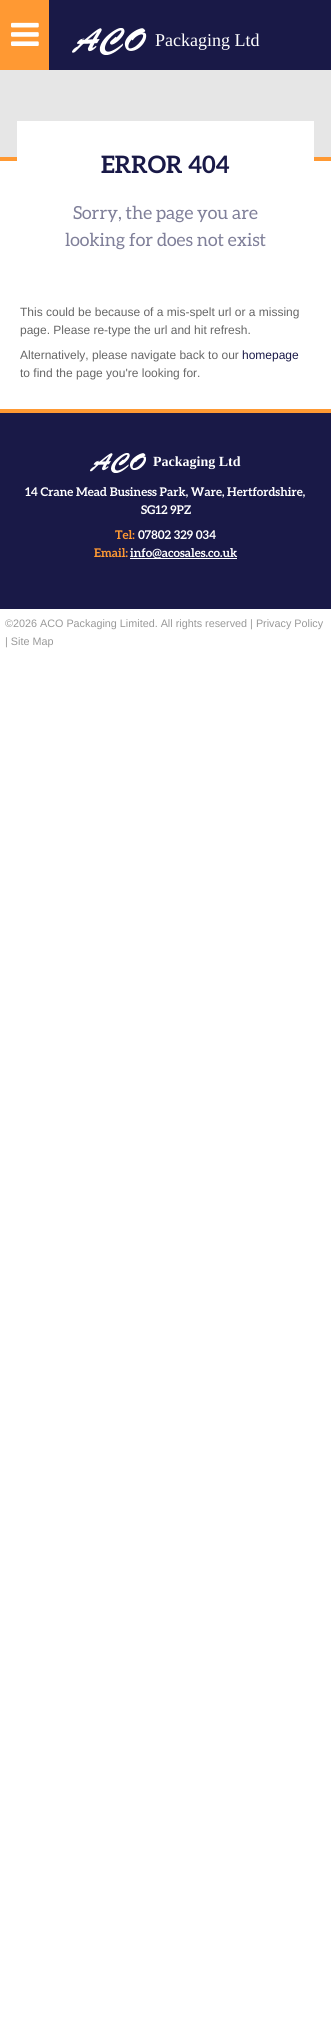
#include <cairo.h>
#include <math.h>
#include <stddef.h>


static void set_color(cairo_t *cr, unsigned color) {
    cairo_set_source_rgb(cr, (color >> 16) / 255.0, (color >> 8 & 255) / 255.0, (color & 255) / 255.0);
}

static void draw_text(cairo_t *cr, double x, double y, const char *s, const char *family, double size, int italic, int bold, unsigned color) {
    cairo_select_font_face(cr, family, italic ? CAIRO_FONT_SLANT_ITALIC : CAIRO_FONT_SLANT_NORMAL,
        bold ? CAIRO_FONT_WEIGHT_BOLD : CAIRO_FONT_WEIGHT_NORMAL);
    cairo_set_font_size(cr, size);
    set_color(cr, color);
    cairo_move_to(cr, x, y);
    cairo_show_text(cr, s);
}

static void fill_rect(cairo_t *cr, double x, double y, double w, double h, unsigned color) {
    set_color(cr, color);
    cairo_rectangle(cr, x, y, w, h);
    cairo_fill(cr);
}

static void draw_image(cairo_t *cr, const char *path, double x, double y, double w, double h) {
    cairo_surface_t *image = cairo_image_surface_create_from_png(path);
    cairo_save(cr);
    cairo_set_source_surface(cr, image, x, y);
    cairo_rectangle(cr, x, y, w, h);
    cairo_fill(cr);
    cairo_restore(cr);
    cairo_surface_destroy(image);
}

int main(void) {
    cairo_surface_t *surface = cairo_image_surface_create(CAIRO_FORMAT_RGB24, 331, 2020);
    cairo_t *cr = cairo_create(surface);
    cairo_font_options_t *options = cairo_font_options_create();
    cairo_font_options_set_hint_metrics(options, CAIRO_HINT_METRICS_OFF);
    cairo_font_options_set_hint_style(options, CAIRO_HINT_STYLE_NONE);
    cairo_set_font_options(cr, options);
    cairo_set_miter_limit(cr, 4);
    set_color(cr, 0xFFFFFF);
    cairo_paint(cr);
    fill_rect(cr, 49, 0, 282, 70, 0x191947);
    fill_rect(cr, 0, 0, 49, 70, 0xFF9933);
    draw_image(cr, "assets/img1.png", 11, 22, 28, 24);
    draw_image(cr, "assets/img2.png", 72, 28, 75, 27);
    draw_text(cr, 155, 46, "Packaging Ltd", "Liberation Serif", 18, 0, 0, 0xFFFFFF);
    fill_rect(cr, 0, 70, 331, 87, 0xE6E6E6);
    fill_rect(cr, 0, 157, 331, 4, 0xFF9933);
    fill_rect(cr, 17, 121, 297, 40, 0xFFFFFF);
    draw_text(cr, 101, 173, "ERROR 404", "Aleo", 24, 0, 1, 0x191947);
    draw_text(cr, 73, 219, "Sorry, the page you are", "Aleo", 18, 0, 0, 0x7F7F99);
    draw_text(cr, 65, 246, "looking for does not exist", "Aleo", 18, 0, 0, 0x7F7F99);
    draw_text(cr, 20, 316, "This could be because of a mis-spelt url or a missing", "Liberation Sans", 12, 0, 0, 0x666666);
    draw_text(cr, 20, 334, "page. Please re-type the url and hit refresh.", "Liberation Sans", 12, 0, 0, 0x666666);
    draw_text(cr, 20, 359, "Alternatively, please navigate back to our", "Liberation Sans", 12, 0, 0, 0x666666);
    draw_text(cr, 242, 359, "homepage", "Liberation Sans", 12, 0, 0, 0x191947);
    draw_text(cr, 20, 377, "to find the page you're looking for.", "Liberation Sans", 12, 0, 0, 0x666666);
    fill_rect(cr, 0, 413, 331, 196, 0x191947);
    fill_rect(cr, 0, 409, 331, 4, 0xFF9933);
    draw_image(cr, "assets/img3.png", 90, 453, 56, 20);
    draw_text(cr, 153, 466, "Packaging Ltd", "Liberation Serif", 14, 0, 1, 0xFFFFFF);
    draw_text(cr, 25, 496, "14 Crane Mead Business Park, Ware, Hertfordshire,", "Aleo", 12, 0, 1, 0xFFFFFF);
    draw_text(cr, 141, 514, "SG12 9PZ", "Aleo", 12, 0, 1, 0xFFFFFF);
    draw_text(cr, 115, 539, "Tel:", "Aleo", 12, 0, 1, 0xFF9933);
    draw_text(cr, 138, 539, "07802 329 034", "Aleo", 12, 0, 1, 0xFFFFFF);
    draw_text(cr, 94, 557, "Email:", "Aleo", 12, 0, 1, 0xFF9933);
    fill_rect(cr, 130, 558, 107, 1, 0xFFFFFF);
    draw_text(cr, 130, 557, "info@acosales.co.uk", "Aleo", 12, 0, 1, 0xFFFFFF);
    draw_text(cr, 5, 627, "©2026 ACO Packaging Limited. All rights reserved | Privacy Policy", "Liberation Sans", 10.8, 0, 0, 0x999999);
    draw_text(cr, 5, 645, "| Site Map", "Liberation Sans", 10.8, 0, 0, 0x999999);
    cairo_surface_write_to_png(surface, "output.png");
    cairo_font_options_destroy(options);
    cairo_destroy(cr);
    cairo_surface_destroy(surface);
    return 0;
}
